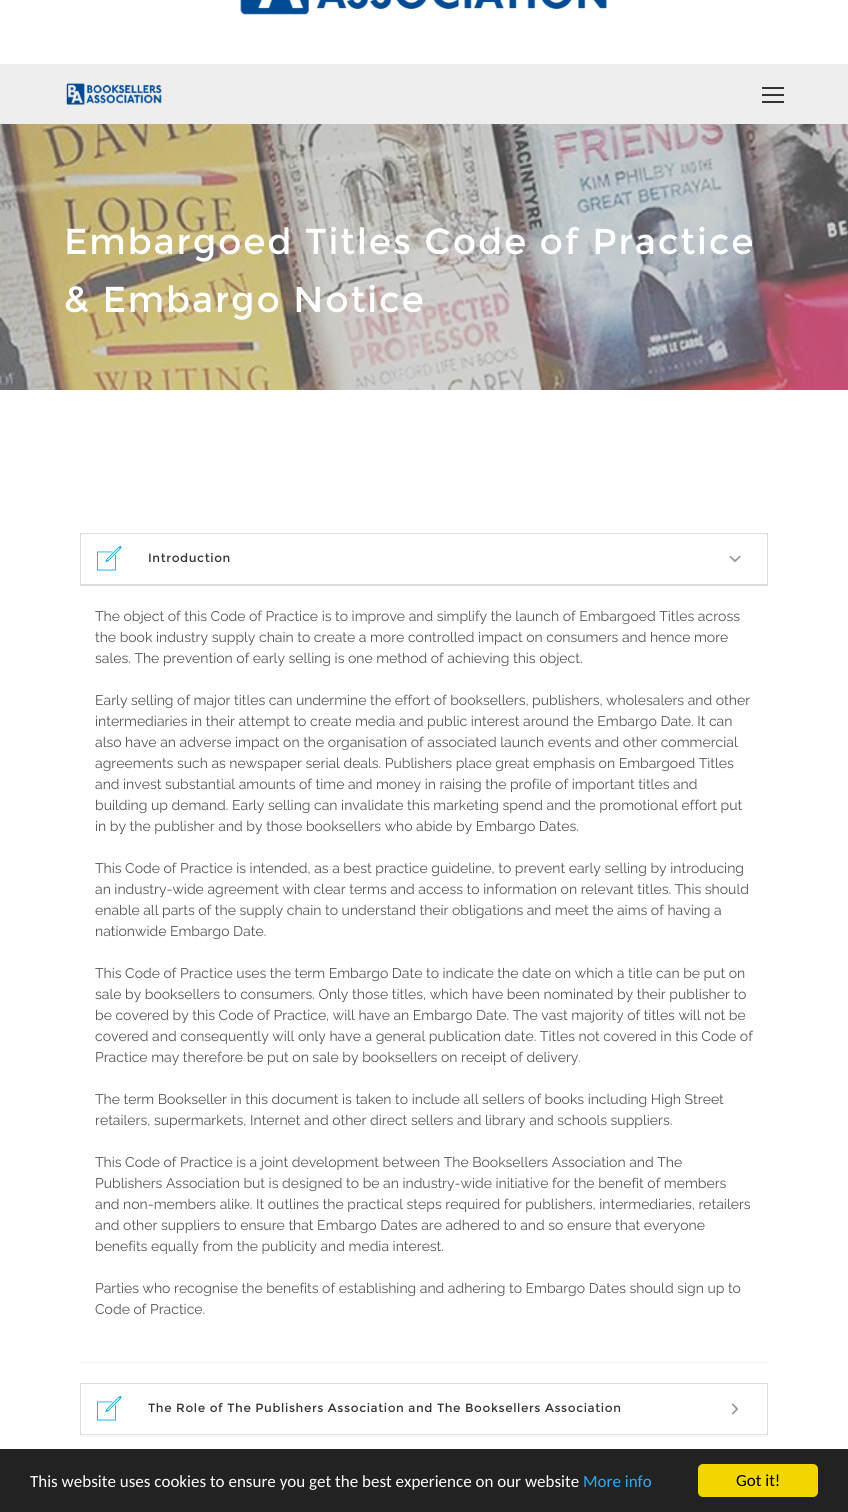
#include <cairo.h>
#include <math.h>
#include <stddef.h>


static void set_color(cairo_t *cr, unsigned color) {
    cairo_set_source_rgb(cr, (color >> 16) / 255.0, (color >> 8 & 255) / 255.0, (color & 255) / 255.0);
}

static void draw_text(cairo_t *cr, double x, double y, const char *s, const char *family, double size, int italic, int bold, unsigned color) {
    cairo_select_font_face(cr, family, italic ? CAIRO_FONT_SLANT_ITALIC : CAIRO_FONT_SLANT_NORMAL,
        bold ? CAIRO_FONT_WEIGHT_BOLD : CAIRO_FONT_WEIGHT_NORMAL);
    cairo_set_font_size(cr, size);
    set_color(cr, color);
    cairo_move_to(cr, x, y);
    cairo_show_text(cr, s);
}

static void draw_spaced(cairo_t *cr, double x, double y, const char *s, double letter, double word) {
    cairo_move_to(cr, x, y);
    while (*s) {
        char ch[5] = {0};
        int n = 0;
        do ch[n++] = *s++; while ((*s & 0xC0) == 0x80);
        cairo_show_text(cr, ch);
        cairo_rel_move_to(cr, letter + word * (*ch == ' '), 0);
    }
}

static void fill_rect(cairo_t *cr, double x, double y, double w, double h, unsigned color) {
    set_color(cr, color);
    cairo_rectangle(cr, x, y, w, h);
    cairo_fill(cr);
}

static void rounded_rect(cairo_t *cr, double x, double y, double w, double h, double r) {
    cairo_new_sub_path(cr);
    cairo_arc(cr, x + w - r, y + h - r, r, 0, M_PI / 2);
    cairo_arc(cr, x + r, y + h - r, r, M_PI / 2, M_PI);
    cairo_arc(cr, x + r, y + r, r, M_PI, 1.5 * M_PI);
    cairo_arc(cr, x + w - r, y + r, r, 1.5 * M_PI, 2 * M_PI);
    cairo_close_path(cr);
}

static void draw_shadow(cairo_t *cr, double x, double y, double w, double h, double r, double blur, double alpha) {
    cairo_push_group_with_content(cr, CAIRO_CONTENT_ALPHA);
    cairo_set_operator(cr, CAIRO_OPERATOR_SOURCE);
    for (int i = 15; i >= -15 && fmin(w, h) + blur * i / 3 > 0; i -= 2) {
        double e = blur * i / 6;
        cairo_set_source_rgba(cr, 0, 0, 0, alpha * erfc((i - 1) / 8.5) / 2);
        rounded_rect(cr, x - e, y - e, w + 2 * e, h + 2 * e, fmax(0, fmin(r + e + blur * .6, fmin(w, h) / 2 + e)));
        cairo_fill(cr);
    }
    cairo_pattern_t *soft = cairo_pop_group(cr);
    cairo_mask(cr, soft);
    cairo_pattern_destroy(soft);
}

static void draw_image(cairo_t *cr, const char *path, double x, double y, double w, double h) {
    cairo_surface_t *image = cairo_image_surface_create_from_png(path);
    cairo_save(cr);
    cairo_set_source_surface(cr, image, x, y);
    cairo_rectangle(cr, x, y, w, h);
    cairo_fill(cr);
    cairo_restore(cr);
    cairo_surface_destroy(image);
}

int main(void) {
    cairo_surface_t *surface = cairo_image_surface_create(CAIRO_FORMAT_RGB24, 848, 1512);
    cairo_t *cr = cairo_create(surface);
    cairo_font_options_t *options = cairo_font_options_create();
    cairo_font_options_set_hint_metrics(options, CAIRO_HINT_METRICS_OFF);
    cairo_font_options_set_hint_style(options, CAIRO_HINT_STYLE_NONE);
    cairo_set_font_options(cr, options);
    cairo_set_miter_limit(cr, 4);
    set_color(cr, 0xFFFFFF);
    cairo_paint(cr);
    fill_rect(cr, 0, 124, 848, 266, 0xD4D4D4);
    draw_image(cr, "assets/img1.png", 240, 0, 368, 15);
    fill_rect(cr, 0, 64, 848, 60, 0xEEEEEE);
    draw_image(cr, "assets/img2.png", 66, 83, 96, 22);
    fill_rect(cr, 762, 87, 22, 2, 0x333333);
    fill_rect(cr, 762, 94, 22, 2, 0x333333);
    fill_rect(cr, 762, 101, 22, 2, 0x333333);
    draw_image(cr, "assets/img3.png", 0, 124, 848, 266);
    cairo_select_font_face(cr, "Montserrat", CAIRO_FONT_SLANT_NORMAL, CAIRO_FONT_WEIGHT_NORMAL);
    cairo_set_font_size(cr, 36);
    set_color(cr, 0xFFFFFF);
    draw_spaced(cr, 64, 254, "Embargoed Titles Code of Practice", 1.8, 0);
    draw_spaced(cr, 64, 312, "& Embargo Notice", 1.8, 0);
    cairo_save(cr);
    cairo_rectangle(cr, 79, 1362, 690, 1);
    cairo_clip(cr);
    set_color(cr, 0x000000);
    draw_shadow(cr, 79, 533, 690, 830, 0, 0.5, 0.05);
    cairo_restore(cr);
    cairo_rectangle(cr, 80.5, 533.5, 687, 51);
    set_color(cr, 0xDDDDDD);
    cairo_set_line_width(cr, 1);
    cairo_stroke(cr);
    draw_image(cr, "assets/img4.png", 97, 546, 25, 25);
    cairo_set_font_size(cr, 12);
    set_color(cr, 0x333333);
    draw_spaced(cr, 148, 562, "Introduction", 0.6, 0);
    draw_image(cr, "assets/img5.png", 729, 555, 12, 7);
    fill_rect(cr, 80, 585, 688, 1, 0xDDDDDD);
    draw_text(cr, 95, 621, "The object of this Code of Practice is to improve and simplify the launch of Embargoed Titles across", "Raleway", 14, 0, 0, 0x555555);
    draw_text(cr, 95, 642, "the book industry supply chain to create a more controlled impact on consumers and hence more", "Raleway", 14, 0, 0, 0x555555);
    draw_text(cr, 95, 663, "sales. The prevention of early selling is one method of achieving this object.", "Raleway", 14, 0, 0, 0x555555);
    draw_text(cr, 95, 705, "Early selling of major titles can undermine the effort of booksellers, publishers, wholesalers and other", "Raleway", 14, 0, 0, 0x555555);
    draw_text(cr, 95, 726, "intermediaries in their attempt to create media and public interest around the Embargo Date. It can", "Raleway", 14, 0, 0, 0x555555);
    draw_text(cr, 95, 747, "also have an adverse impact on the organisation of associated launch events and other commercial", "Raleway", 14, 0, 0, 0x555555);
    draw_text(cr, 95, 768, "agreements such as newspaper serial deals. Publishers place great emphasis on Embargoed Titles", "Raleway", 14, 0, 0, 0x555555);
    draw_text(cr, 95, 789, "and invest substantial amounts of time and money in raising the profile of important titles and", "Raleway", 14, 0, 0, 0x555555);
    draw_text(cr, 95, 810, "building up demand. Early selling can invalidate this marketing spend and the promotional effort put", "Raleway", 14, 0, 0, 0x555555);
    draw_text(cr, 95, 831, "in by the publisher and by those booksellers who abide by Embargo Dates.", "Raleway", 14, 0, 0, 0x555555);
    draw_text(cr, 95, 873, "This Code of Practice is intended, as a best practice guideline, to prevent early selling by introducing", "Raleway", 14, 0, 0, 0x555555);
    draw_text(cr, 95, 894, "an industry-wide agreement with clear terms and access to information on relevant titles. This should", "Raleway", 14, 0, 0, 0x555555);
    draw_text(cr, 95, 915, "enable all parts of the supply chain to understand their obligations and meet the aims of having a", "Raleway", 14, 0, 0, 0x555555);
    draw_text(cr, 95, 936, "nationwide Embargo Date.", "Raleway", 14, 0, 0, 0x555555);
    draw_text(cr, 95, 978, "This Code of Practice uses the term Embargo Date to indicate the date on which a title can be put on", "Raleway", 14, 0, 0, 0x555555);
    draw_text(cr, 95, 999, "sale by booksellers to consumers. Only those titles, which have been nominated by their publisher to", "Raleway", 14, 0, 0, 0x555555);
    draw_text(cr, 95, 1020, "be covered by this Code of Practice, will have an Embargo Date. The vast majority of titles will not be", "Raleway", 14, 0, 0, 0x555555);
    draw_text(cr, 95, 1041, "covered and consequently will only have a general publication date. Titles not covered in this Code of", "Raleway", 14, 0, 0, 0x555555);
    draw_text(cr, 95, 1062, "Practice may therefore be put on sale by booksellers on receipt of delivery.", "Raleway", 14, 0, 0, 0x555555);
    draw_text(cr, 95, 1104, "The term Bookseller in this document is taken to include all sellers of books including High Street", "Raleway", 14, 0, 0, 0x555555);
    draw_text(cr, 95, 1125, "retailers, supermarkets, Internet and other direct sellers and library and schools suppliers.", "Raleway", 14, 0, 0, 0x555555);
    draw_text(cr, 95, 1167, "This Code of Practice is a joint development between The Booksellers Association and The", "Raleway", 14, 0, 0, 0x555555);
    draw_text(cr, 95, 1188, "Publishers Association but is designed to be an industry-wide initiative for the benefit of members", "Raleway", 14, 0, 0, 0x555555);
    draw_text(cr, 95, 1209, "and non-members alike. It outlines the practical steps required for publishers, intermediaries, retailers", "Raleway", 14, 0, 0, 0x555555);
    draw_text(cr, 95, 1230, "and other suppliers to ensure that Embargo Dates are adhered to and so ensure that everyone", "Raleway", 14, 0, 0, 0x555555);
    draw_text(cr, 95, 1251, "benefits equally from the publicity and media interest.", "Raleway", 14, 0, 0, 0x555555);
    draw_text(cr, 95, 1293, "Parties who recognise the benefits of establishing and adhering to Embargo Dates should sign up to", "Raleway", 14, 0, 0, 0x555555);
    draw_text(cr, 95, 1314, "Code of Practice.", "Raleway", 14, 0, 0, 0x555555);
    cairo_save(cr);
    cairo_rectangle(cr, 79, 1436, 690, 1);
    cairo_clip(cr);
    set_color(cr, 0x000000);
    draw_shadow(cr, 79, 1383, 690, 54, 0, 0.5, 0.05);
    cairo_restore(cr);
    cairo_rectangle(cr, 80.5, 1383.5, 687, 51);
    set_color(cr, 0xDDDDDD);
    cairo_stroke(cr);
    draw_image(cr, "assets/img4.png", 97, 1396, 25, 25);
    cairo_select_font_face(cr, "Montserrat", CAIRO_FONT_SLANT_NORMAL, CAIRO_FONT_WEIGHT_NORMAL);
    cairo_set_font_size(cr, 12);
    set_color(cr, 0x333333);
    draw_spaced(cr, 148, 1412, "The Role of The Publishers Association and The Booksellers Association", 0.6, 0);
    draw_image(cr, "assets/img6.png", 731, 1403, 7, 12);
    fill_rect(cr, 0, 1449, 848, 63, 0x222222);
    draw_text(cr, 30, 1487, "This website uses cookies to ensure you get the best experience on our website", "Carlito", 17, 0, 0, 0xFFFFFF);
    draw_text(cr, 583, 1487, "More info", "Carlito", 17, 0, 0, 0x31A8F0);
    set_color(cr, 0xF1D600);
    rounded_rect(cr, 698, 1464, 120, 33, 5);
    cairo_fill(cr);
    draw_text(cr, 736, 1486, "Got it!", "Carlito", 17, 0, 0, 0x000000);
    cairo_surface_write_to_png(surface, "output.png");
    cairo_font_options_destroy(options);
    cairo_destroy(cr);
    cairo_surface_destroy(surface);
    return 0;
}
